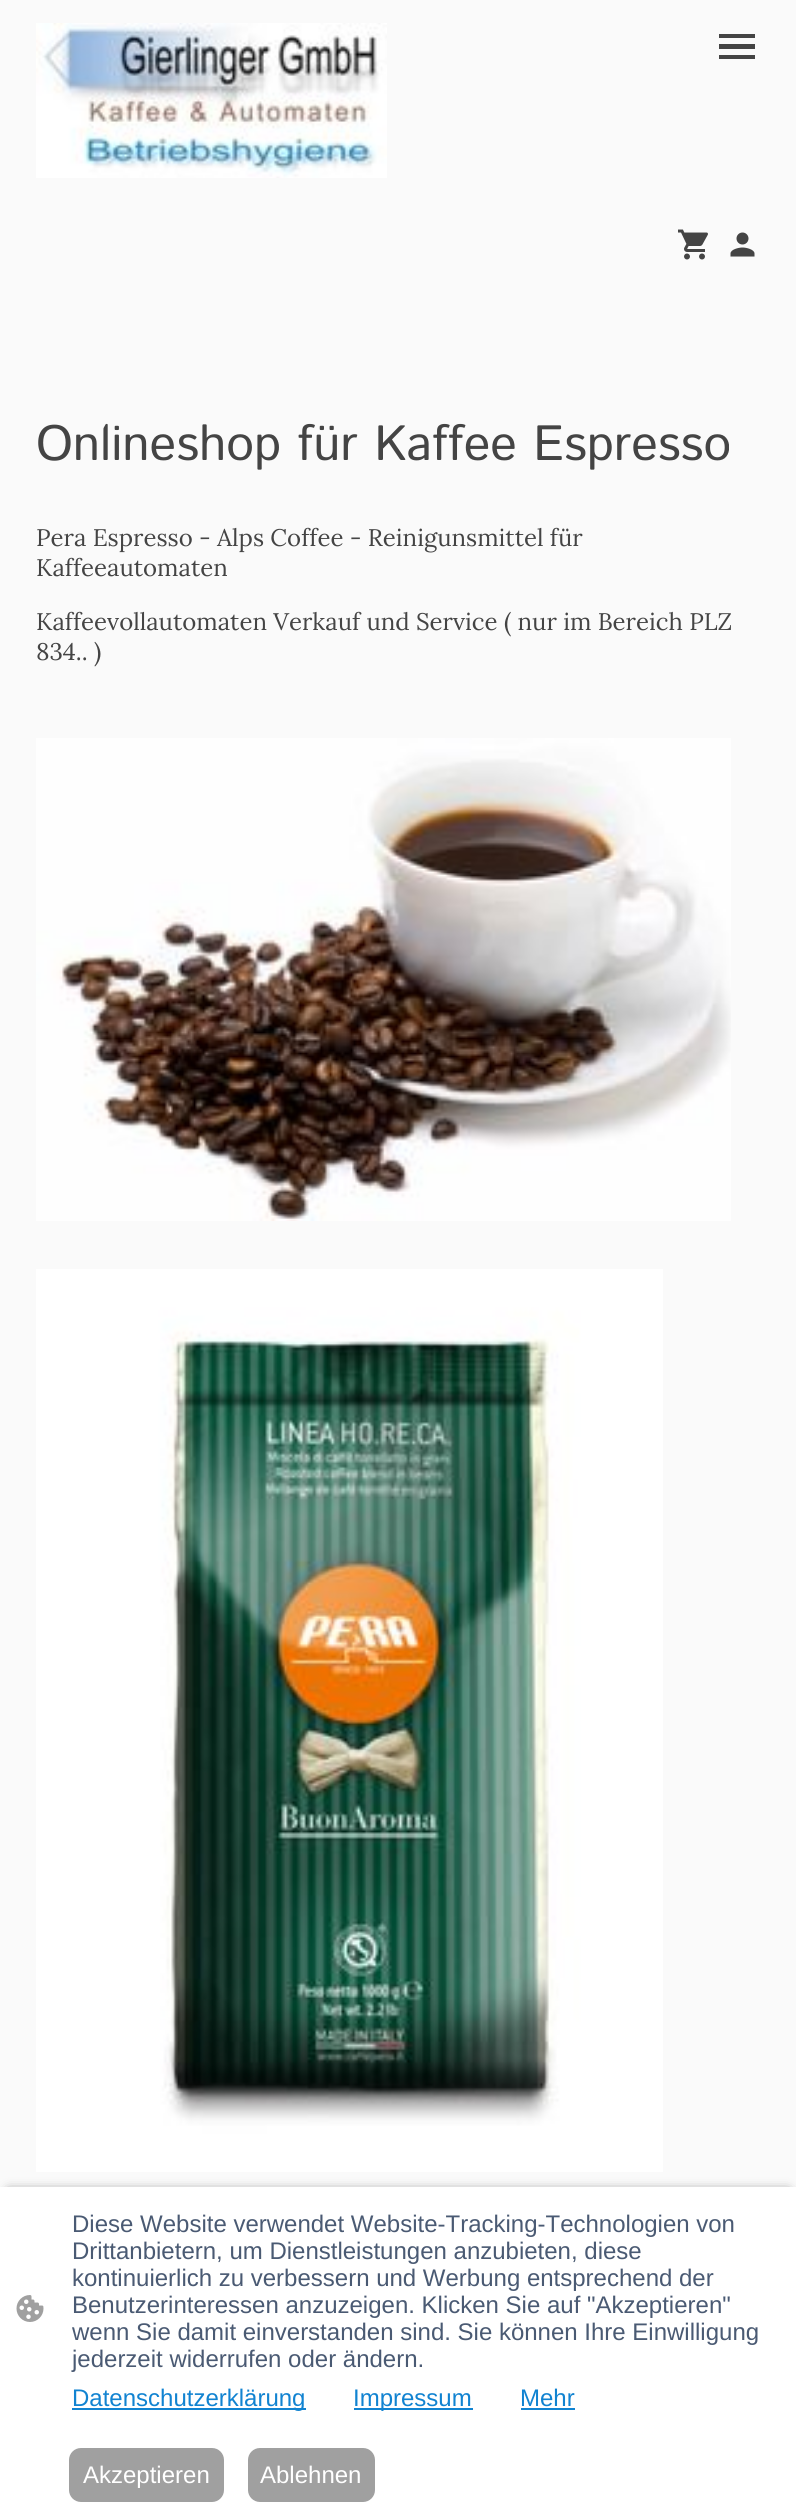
#include <cairo.h>
#include <math.h>
#include <stddef.h>


static void set_color(cairo_t *cr, unsigned color) {
    cairo_set_source_rgb(cr, (color >> 16) / 255.0, (color >> 8 & 255) / 255.0, (color & 255) / 255.0);
}

static void draw_text(cairo_t *cr, double x, double y, const char *s, const char *family, double size, int italic, int bold, unsigned color) {
    cairo_select_font_face(cr, family, italic ? CAIRO_FONT_SLANT_ITALIC : CAIRO_FONT_SLANT_NORMAL,
        bold ? CAIRO_FONT_WEIGHT_BOLD : CAIRO_FONT_WEIGHT_NORMAL);
    cairo_set_font_size(cr, size);
    set_color(cr, color);
    cairo_move_to(cr, x, y);
    cairo_show_text(cr, s);
}

static void fill_rect(cairo_t *cr, double x, double y, double w, double h, unsigned color) {
    set_color(cr, color);
    cairo_rectangle(cr, x, y, w, h);
    cairo_fill(cr);
}

static void rounded_rect(cairo_t *cr, double x, double y, double w, double h, double r) {
    cairo_new_sub_path(cr);
    cairo_arc(cr, x + w - r, y + h - r, r, 0, M_PI / 2);
    cairo_arc(cr, x + r, y + h - r, r, M_PI / 2, M_PI);
    cairo_arc(cr, x + r, y + r, r, M_PI, 1.5 * M_PI);
    cairo_arc(cr, x + w - r, y + r, r, 1.5 * M_PI, 2 * M_PI);
    cairo_close_path(cr);
}

static void draw_shadow(cairo_t *cr, double x, double y, double w, double h, double r, double blur, double alpha) {
    cairo_push_group_with_content(cr, CAIRO_CONTENT_ALPHA);
    cairo_set_operator(cr, CAIRO_OPERATOR_SOURCE);
    for (int i = 15; i >= -15 && fmin(w, h) + blur * i / 3 > 0; i -= 2) {
        double e = blur * i / 6;
        cairo_set_source_rgba(cr, 0, 0, 0, alpha * erfc((i - 1) / 8.5) / 2);
        rounded_rect(cr, x - e, y - e, w + 2 * e, h + 2 * e, fmax(0, fmin(r + e + blur * .6, fmin(w, h) / 2 + e)));
        cairo_fill(cr);
    }
    cairo_pattern_t *soft = cairo_pop_group(cr);
    cairo_mask(cr, soft);
    cairo_pattern_destroy(soft);
}

static void draw_image(cairo_t *cr, const char *path, double x, double y, double w, double h) {
    cairo_surface_t *image = cairo_image_surface_create_from_png(path);
    cairo_save(cr);
    cairo_set_source_surface(cr, image, x, y);
    cairo_rectangle(cr, x, y, w, h);
    cairo_fill(cr);
    cairo_restore(cr);
    cairo_surface_destroy(image);
}

int main(void) {
    cairo_surface_t *surface = cairo_image_surface_create(CAIRO_FORMAT_RGB24, 796, 2514);
    cairo_t *cr = cairo_create(surface);
    cairo_font_options_t *options = cairo_font_options_create();
    cairo_font_options_set_hint_metrics(options, CAIRO_HINT_METRICS_OFF);
    cairo_font_options_set_hint_style(options, CAIRO_HINT_STYLE_NONE);
    cairo_set_font_options(cr, options);
    cairo_set_miter_limit(cr, 4);
    set_color(cr, 0xFAFAFA);
    cairo_paint(cr);
    draw_image(cr, "assets/img1.png", 36, 23, 351, 155);
    fill_rect(cr, 719, 34, 36, 4, 0x444444);
    fill_rect(cr, 719, 44, 36, 5, 0x444444);
    fill_rect(cr, 719, 55, 36, 4, 0x444444);
    draw_image(cr, "assets/img2.png", 678, 229, 30, 31);
    draw_image(cr, "assets/img3.png", 730, 232, 25, 25);
    draw_text(cr, 36, 460, "Onlineshop für Kaffee Espresso", "Istok Web", 49.5, 0, 0, 0x444444);
    draw_text(cr, 36, 546, "Pera Espresso - Alps Coffee - Reinigunsmittel für", "Lora", 24, 0, 0, 0x444444);
    draw_text(cr, 36, 576, "Kaffeeautomaten", "Lora", 24, 0, 0, 0x444444);
    draw_text(cr, 36, 630, "Kaffeevollautomaten Verkauf und Service ( nur im Bereich PLZ", "Lora", 24, 0, 0, 0x444444);
    draw_text(cr, 36, 660, "834.. )", "Lora", 24, 0, 0, 0x444444);
    draw_image(cr, "assets/img4.png", 36, 738, 695, 483);
    draw_image(cr, "assets/img5.png", 36, 1269, 627, 903);
    set_color(cr, 0x000000);
    draw_shadow(cr, 9, 2192, 779, 309, 0, 6, 0.63);
    fill_rect(cr, 0, 2187, 796, 327, 0xFFFFFF);
    draw_image(cr, "assets/img6.png", 16, 2295, 28, 27);
    draw_text(cr, 72, 2232, "Diese Website verwendet Website-Tracking-Technologien von", "Liberation Sans", 24, 0, 0, 0x4A5A73);
    draw_text(cr, 72, 2259, "Drittanbietern, um Dienstleistungen anzubieten, diese", "Liberation Sans", 24, 0, 0, 0x4A5A73);
    draw_text(cr, 72, 2286, "kontinuierlich zu verbessern und Werbung entsprechend der", "Liberation Sans", 24, 0, 0, 0x4A5A73);
    draw_text(cr, 72, 2313, "Benutzerinteressen anzuzeigen. Klicken Sie auf \"Akzeptieren\"", "Liberation Sans", 24, 0, 0, 0x4A5A73);
    draw_text(cr, 72, 2340, "wenn Sie damit einverstanden sind. Sie können Ihre Einwilligung", "Liberation Sans", 24, 0, 0, 0x4A5A73);
    draw_text(cr, 72, 2367, "jederzeit widerrufen oder ändern.", "Liberation Sans", 24, 0, 0, 0x4A5A73);
    fill_rect(cr, 72, 2408, 234, 2, 0x1183D1);
    draw_text(cr, 72, 2406, "Datenschutzerklärung", "Liberation Sans", 24, 0, 0, 0x1183D1);
    fill_rect(cr, 354, 2408, 119, 2, 0x1183D1);
    draw_text(cr, 353, 2406, "Impressum", "Liberation Sans", 24, 0, 0, 0x1183D1);
    draw_text(cr, 520, 2406, "Mehr", "Liberation Sans", 24, 0, 0, 0x1183D1);
    fill_rect(cr, 521, 2408, 54, 2, 0x1183D1);
    set_color(cr, 0xA0A0A0);
    rounded_rect(cr, 70, 2449, 153, 52, 11);
    cairo_fill_preserve(cr);
    cairo_stroke(cr);
    draw_text(cr, 83, 2483, "Akzeptieren", "Liberation Sans", 24, 0, 0, 0xFFFFFF);
    set_color(cr, 0xA0A0A0);
    rounded_rect(cr, 249, 2449, 125, 52, 11);
    cairo_fill_preserve(cr);
    cairo_stroke(cr);
    draw_text(cr, 260, 2483, "Ablehnen", "Liberation Sans", 24, 0, 0, 0xFFFFFF);
    cairo_surface_write_to_png(surface, "output.png");
    cairo_font_options_destroy(options);
    cairo_destroy(cr);
    cairo_surface_destroy(surface);
    return 0;
}
